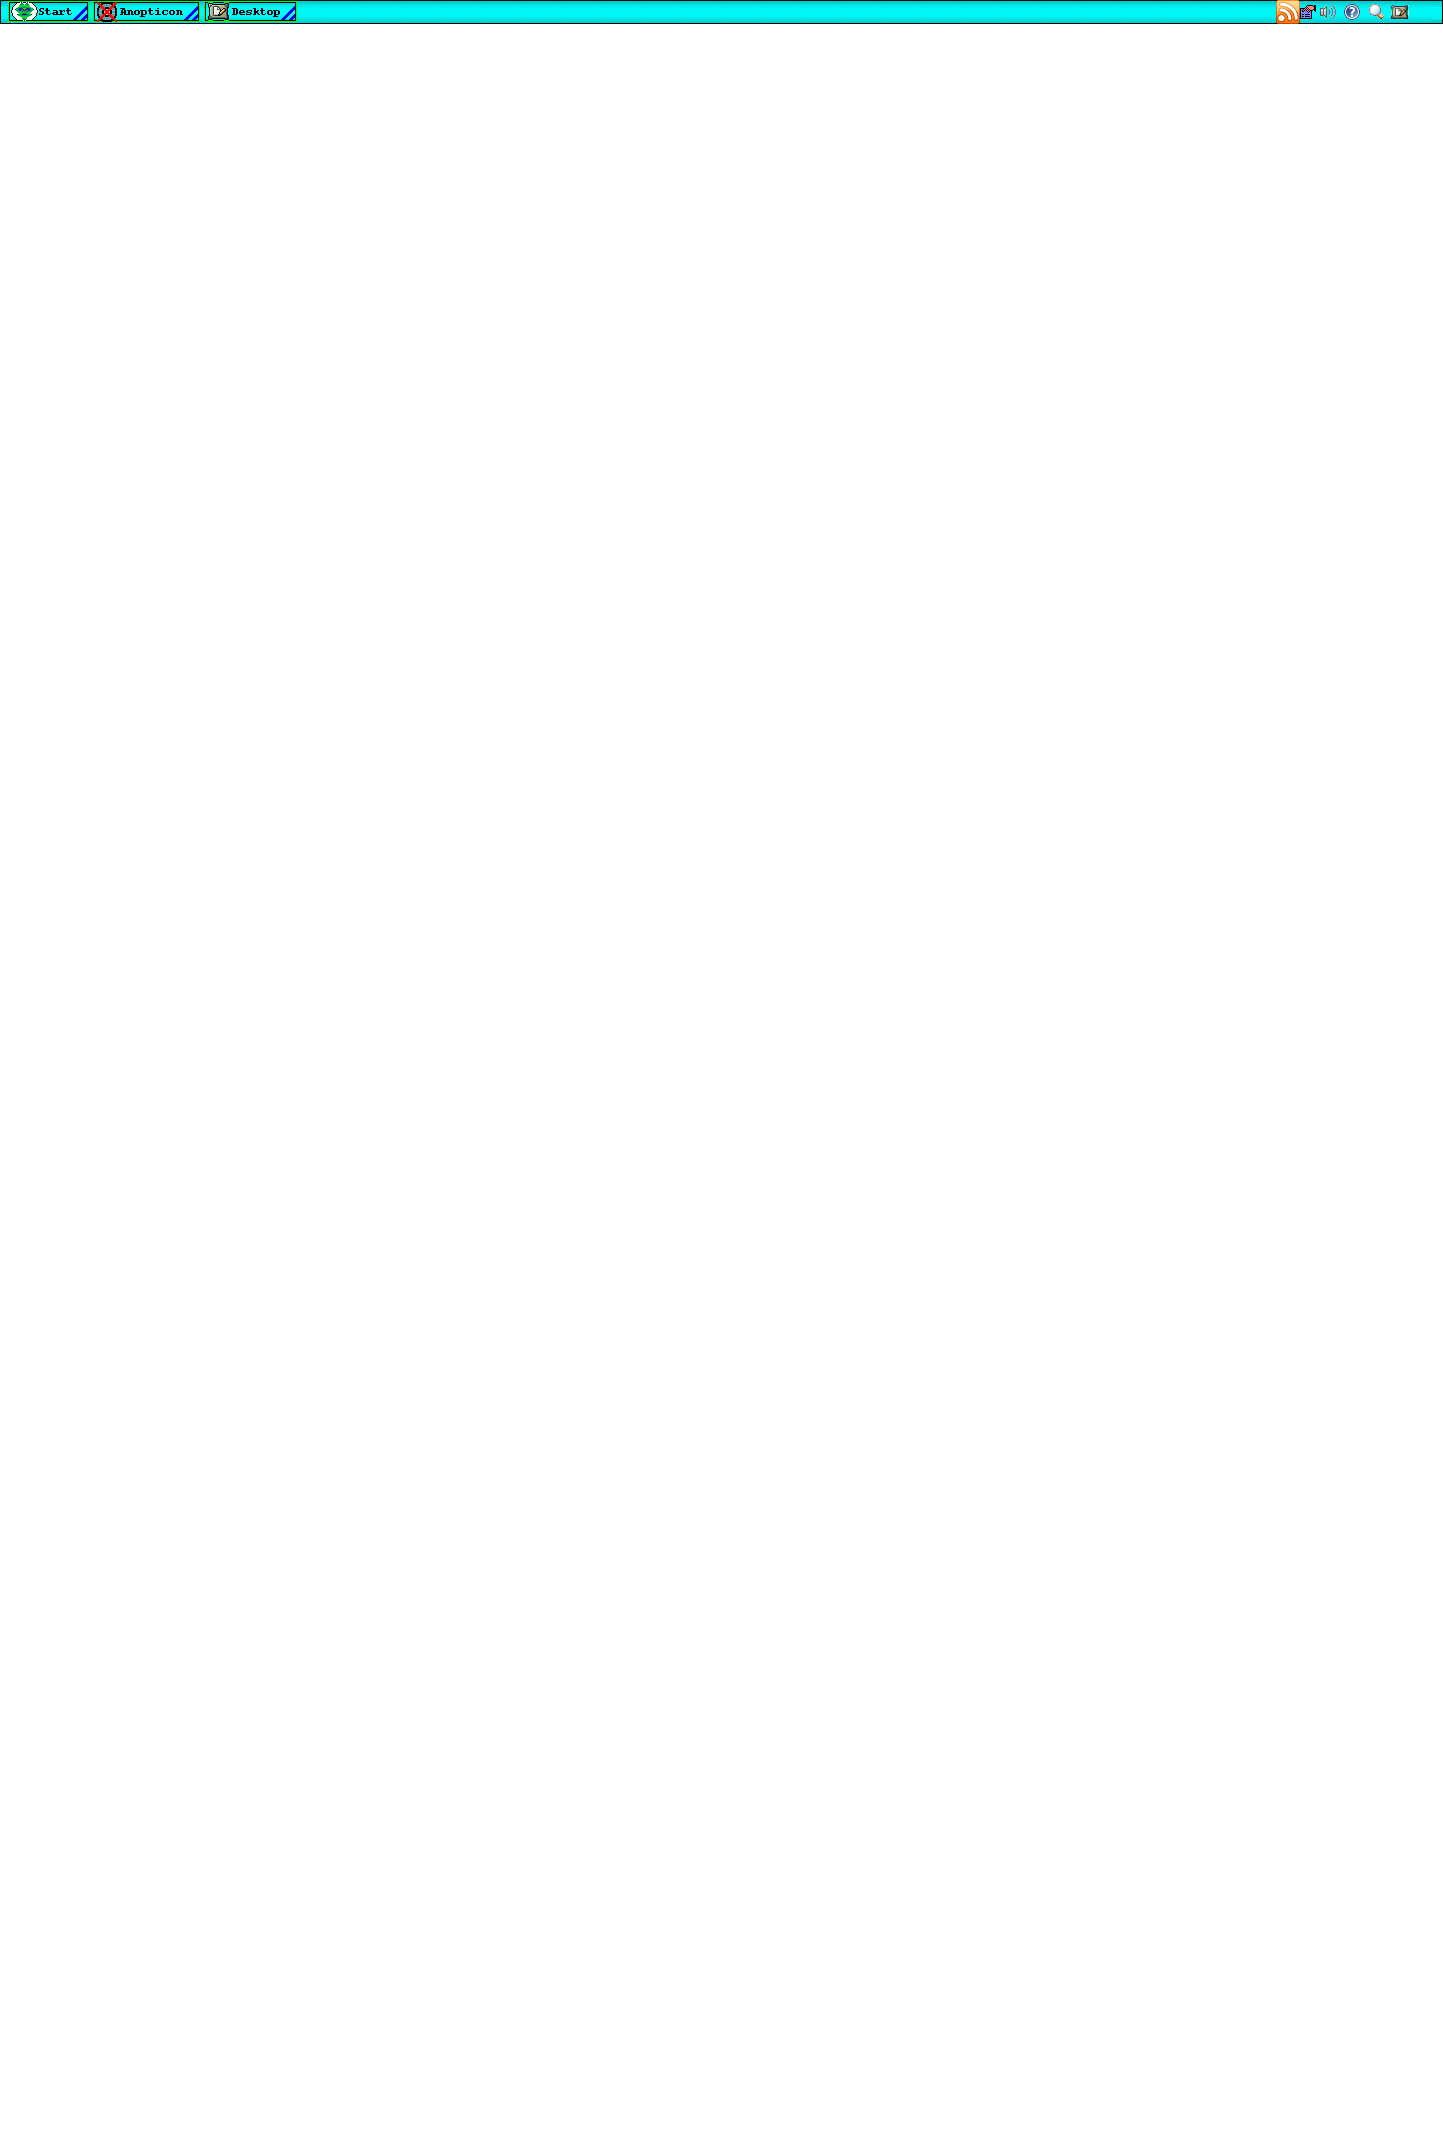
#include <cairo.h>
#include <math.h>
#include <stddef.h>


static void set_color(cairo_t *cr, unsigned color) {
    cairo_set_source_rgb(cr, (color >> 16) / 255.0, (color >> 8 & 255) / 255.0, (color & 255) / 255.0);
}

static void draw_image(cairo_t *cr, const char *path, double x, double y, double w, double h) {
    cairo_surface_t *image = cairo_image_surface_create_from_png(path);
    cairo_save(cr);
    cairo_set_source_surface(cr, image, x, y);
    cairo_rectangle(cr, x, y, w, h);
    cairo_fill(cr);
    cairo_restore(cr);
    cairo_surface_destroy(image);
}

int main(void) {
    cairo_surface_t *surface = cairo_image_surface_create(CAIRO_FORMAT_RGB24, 1443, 2136);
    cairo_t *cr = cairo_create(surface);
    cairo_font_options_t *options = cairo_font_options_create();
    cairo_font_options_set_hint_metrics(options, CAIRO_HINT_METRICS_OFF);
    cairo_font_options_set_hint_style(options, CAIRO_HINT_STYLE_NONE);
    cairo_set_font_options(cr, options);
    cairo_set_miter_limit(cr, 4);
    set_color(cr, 0xFFFFFF);
    cairo_paint(cr);
    draw_image(cr, "assets/img1.png", 0, 0, 11, 24);
    draw_image(cr, "assets/img2.png", 11, 0, 1265, 24);
    draw_image(cr, "assets/img3.png", 8, 1, 81, 21);
    draw_image(cr, "assets/img4.png", 93, 1, 107, 21);
    draw_image(cr, "assets/img5.png", 204, 1, 93, 21);
    draw_image(cr, "assets/img6.png", 1276, 0, 24, 24);
    draw_image(cr, "assets/img7.png", 1276, 0, 24, 24);
    draw_image(cr, "assets/img8.png", 1300, 0, 20, 24);
    draw_image(cr, "assets/img9.png", 1300, 5, 16, 14);
    draw_image(cr, "assets/img8.png", 1320, 0, 20, 24);
    draw_image(cr, "assets/img10.png", 1320, 5, 16, 14);
    draw_image(cr, "assets/img6.png", 1340, 0, 24, 24);
    draw_image(cr, "assets/img11.png", 1344, 4, 16, 16);
    draw_image(cr, "assets/img6.png", 1364, 0, 24, 24);
    draw_image(cr, "assets/img12.png", 1369, 4, 15, 15);
    draw_image(cr, "assets/img6.png", 1388, 0, 24, 24);
    draw_image(cr, "assets/img13.png", 1391, 5, 18, 14);
    draw_image(cr, "assets/img8.png", 1412, 0, 20, 24);
    draw_image(cr, "assets/img14.png", 1432, 0, 11, 24);
    cairo_surface_write_to_png(surface, "output.png");
    cairo_font_options_destroy(options);
    cairo_destroy(cr);
    cairo_surface_destroy(surface);
    return 0;
}
